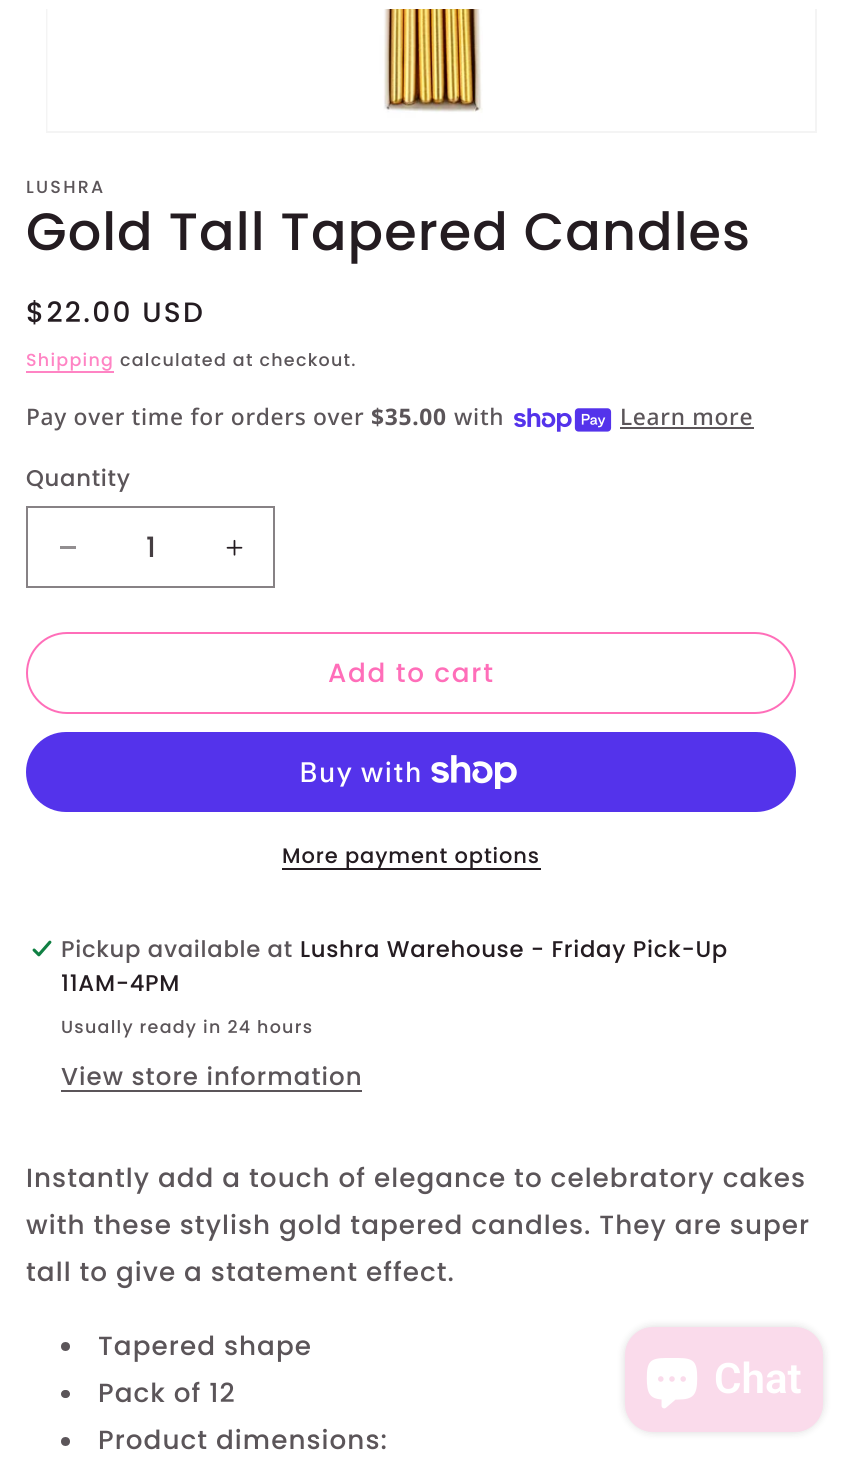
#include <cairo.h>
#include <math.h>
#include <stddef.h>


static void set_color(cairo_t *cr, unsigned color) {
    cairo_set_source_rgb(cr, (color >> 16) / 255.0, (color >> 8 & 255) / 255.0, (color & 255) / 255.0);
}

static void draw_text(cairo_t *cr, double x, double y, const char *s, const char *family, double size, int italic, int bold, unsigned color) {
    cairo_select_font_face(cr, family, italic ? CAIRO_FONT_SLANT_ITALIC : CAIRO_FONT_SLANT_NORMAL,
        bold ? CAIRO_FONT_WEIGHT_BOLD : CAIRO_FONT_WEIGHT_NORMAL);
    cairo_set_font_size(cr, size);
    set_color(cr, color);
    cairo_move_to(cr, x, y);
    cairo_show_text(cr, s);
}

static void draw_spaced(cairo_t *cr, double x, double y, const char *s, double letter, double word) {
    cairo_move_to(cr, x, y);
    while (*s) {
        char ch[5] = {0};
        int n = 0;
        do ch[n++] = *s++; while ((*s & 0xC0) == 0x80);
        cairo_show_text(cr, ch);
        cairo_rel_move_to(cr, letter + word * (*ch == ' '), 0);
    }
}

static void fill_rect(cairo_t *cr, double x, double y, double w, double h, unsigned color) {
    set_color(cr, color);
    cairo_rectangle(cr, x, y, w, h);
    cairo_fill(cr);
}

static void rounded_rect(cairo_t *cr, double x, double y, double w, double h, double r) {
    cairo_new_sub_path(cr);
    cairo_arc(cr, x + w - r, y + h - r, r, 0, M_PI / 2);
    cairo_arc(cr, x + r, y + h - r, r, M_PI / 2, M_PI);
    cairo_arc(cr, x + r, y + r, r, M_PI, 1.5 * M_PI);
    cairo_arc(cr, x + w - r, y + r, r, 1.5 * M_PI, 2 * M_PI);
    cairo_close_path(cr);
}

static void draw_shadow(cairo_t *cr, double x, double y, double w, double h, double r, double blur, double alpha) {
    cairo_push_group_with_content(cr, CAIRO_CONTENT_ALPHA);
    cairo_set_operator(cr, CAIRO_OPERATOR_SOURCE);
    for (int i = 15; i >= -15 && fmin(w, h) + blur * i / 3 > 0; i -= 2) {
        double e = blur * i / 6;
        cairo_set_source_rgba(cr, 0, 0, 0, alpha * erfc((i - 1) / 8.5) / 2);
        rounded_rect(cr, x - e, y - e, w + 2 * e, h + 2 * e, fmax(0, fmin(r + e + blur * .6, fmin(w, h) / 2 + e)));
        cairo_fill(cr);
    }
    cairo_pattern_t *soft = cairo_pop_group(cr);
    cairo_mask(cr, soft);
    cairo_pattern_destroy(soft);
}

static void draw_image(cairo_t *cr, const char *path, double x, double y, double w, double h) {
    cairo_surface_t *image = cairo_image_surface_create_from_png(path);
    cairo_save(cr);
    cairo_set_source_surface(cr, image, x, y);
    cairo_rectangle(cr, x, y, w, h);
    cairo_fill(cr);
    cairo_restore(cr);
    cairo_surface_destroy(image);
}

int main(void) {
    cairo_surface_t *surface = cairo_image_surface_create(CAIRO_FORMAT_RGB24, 861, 1467);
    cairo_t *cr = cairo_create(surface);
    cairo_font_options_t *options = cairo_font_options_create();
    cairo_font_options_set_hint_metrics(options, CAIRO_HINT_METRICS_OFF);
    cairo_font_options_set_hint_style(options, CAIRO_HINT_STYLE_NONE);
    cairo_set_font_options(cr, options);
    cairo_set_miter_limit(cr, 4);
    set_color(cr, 0xFFFFFF);
    cairo_paint(cr);
    cairo_rectangle(cr, 47, -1, 769, 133);
    set_color(cr, 0xF4F4F4);
    cairo_stroke(cr);
    fill_rect(cr, 46, 0, 771, 9, 0xFFFFFF);
    draw_image(cr, "assets/img1.png", 47, 9, 436, 122);
    cairo_select_font_face(cr, "Poppins Medium", CAIRO_FONT_SLANT_NORMAL, CAIRO_FONT_WEIGHT_NORMAL);
    cairo_set_font_size(cr, 17.5);
    set_color(cr, 0x5B5559);
    draw_spaced(cr, 26, 193, "LUSHRA", 2.25, 0);
    cairo_set_font_size(cr, 52.5);
    set_color(cr, 0x241C21);
    draw_spaced(cr, 26, 250, "Gold Tall Tapered Candles", 1.05, 0);
    cairo_set_font_size(cr, 28);
    draw_spaced(cr, 26, 322, "$22.00 USD", 2.25, 0);
    cairo_set_font_size(cr, 17.5);
    set_color(cr, 0xFF84C4);
    draw_spaced(cr, 26, 366, "Shipping", 1.25, 0);
    fill_rect(cr, 26, 371, 88, 2, 0xFF84C4);
    set_color(cr, 0x5B5559);
    draw_spaced(cr, 120, 366, "calculated at checkout.", 1.25, 0);
    cairo_select_font_face(cr, "Noto Sans Medium", CAIRO_FONT_SLANT_NORMAL, CAIRO_FONT_WEIGHT_NORMAL);
    cairo_set_font_size(cr, 22.75);
    draw_spaced(cr, 26, 425, "Pay over time for orders over", 0.7, 0);
    cairo_select_font_face(cr, "Noto Sans", CAIRO_FONT_SLANT_NORMAL, CAIRO_FONT_WEIGHT_BOLD);
    draw_spaced(cr, 371, 425, "$35.00", 0.7, 0);
    cairo_select_font_face(cr, "Noto Sans Medium", CAIRO_FONT_SLANT_NORMAL, CAIRO_FONT_WEIGHT_NORMAL);
    draw_spaced(cr, 454, 425, "with", 0.7, 0);
    draw_image(cr, "assets/img2.png", 514, 408, 98, 24);
    draw_spaced(cr, 620, 425, "Learn more", 0.7, 0);
    fill_rect(cr, 620, 427, 134, 2, 0x5B5559);
    cairo_select_font_face(cr, "Poppins Medium", CAIRO_FONT_SLANT_NORMAL, CAIRO_FONT_WEIGHT_NORMAL);
    draw_spaced(cr, 26, 486, "Quantity", 0.7, 0);
    fill_rect(cr, 60, 546, 16, 3, 0x928E90);
    draw_image(cr, "assets/img3.png", 226, 539, 17, 17);
    cairo_rectangle(cr, 27, 507, 247, 80);
    set_color(cr, 0x878285);
    cairo_stroke(cr);
    draw_text(cr, 146, 557, "1", "Poppins Medium", 28, 0, 0, 0x453E42);
    rounded_rect(cr, 27, 633, 768, 80, 40);
    set_color(cr, 0xFF6EB9);
    cairo_stroke(cr);
    cairo_set_font_size(cr, 26.25);
    draw_spaced(cr, 328, 682, "Add to cart", 1.75, 0);
    set_color(cr, 0x5433EB);
    rounded_rect(cr, 26, 732, 770, 80, 40);
    cairo_fill(cr);
    cairo_select_font_face(cr, "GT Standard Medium", CAIRO_FONT_SLANT_NORMAL, CAIRO_FONT_WEIGHT_NORMAL);
    cairo_set_font_size(cr, 28);
    set_color(cr, 0xFFFFFF);
    draw_spaced(cr, 299, 782, "Buy with", 1.05, 0);
    draw_image(cr, "assets/img4.png", 431, 755, 86, 34);
    fill_rect(cr, 282, 868, 259, 2, 0x241C21);
    cairo_select_font_face(cr, "Poppins Medium", CAIRO_FONT_SLANT_NORMAL, CAIRO_FONT_WEIGHT_NORMAL);
    cairo_set_font_size(cr, 21);
    draw_spaced(cr, 282, 863, "More payment options", 0.9, 0);
    draw_image(cr, "assets/img5.png", 32, 940, 20, 17);
    cairo_set_font_size(cr, 22.75);
    set_color(cr, 0x5B5559);
    draw_spaced(cr, 61, 957, "Pickup available at", 0.7, 0);
    set_color(cr, 0x241C21);
    draw_spaced(cr, 300, 957, "Lushra Warehouse - Friday Pick-Up", 0.7, 0);
    draw_spaced(cr, 61, 991, "11AM-4PM", 0.7, 0);
    cairo_set_font_size(cr, 17.5);
    set_color(cr, 0x5B5559);
    draw_spaced(cr, 61, 1033, "Usually ready in 24 hours", 1.25, 0);
    cairo_set_font_size(cr, 24.5);
    draw_spaced(cr, 61, 1085, "View store information", 1.05, 0);
    fill_rect(cr, 61, 1090, 301, 2, 0x5B5559);
    cairo_set_font_size(cr, 26.25);
    draw_spaced(cr, 26, 1187, "Instantly add a touch of elegance to celebratory cakes", 1.05, 0);
    draw_spaced(cr, 26, 1234, "with these stylish gold tapered candles. They are super", 1.05, 0);
    draw_spaced(cr, 26, 1281, "tall to give a statement effect.", 1.05, 0);
    cairo_new_path(cr);
    cairo_arc(cr, 65.5, 1346.5, 4.5, 0, 2 * M_PI);
    cairo_fill(cr);
    draw_spaced(cr, 98, 1355, "Tapered shape", 1.05, 0);
    rounded_rect(cr, 61, 1390, 9, 8, 4);
    cairo_fill(cr);
    draw_spaced(cr, 98, 1402, "Pack of 12", 1.05, 0);
    cairo_new_path(cr);
    cairo_arc(cr, 65.5, 1441.5, 4.5, 0, 2 * M_PI);
    cairo_fill(cr);
    draw_spaced(cr, 98, 1449, "Product dimensions:", 1.05, 0);
    set_color(cr, 0x000000);
    draw_shadow(cr, 625, 1327, 198, 105, 28, 4.5, 0.15);
    set_color(cr, 0xFADBEB);
    rounded_rect(cr, 625, 1327, 198, 105, 28);
    cairo_fill(cr);
    draw_image(cr, "assets/img6.png", 646, 1358, 52, 51);
    draw_text(cr, 714, 1393, "Chat", "Roboto SemiBold", 42, 0, 0, 0xFFFFFF);
    cairo_surface_write_to_png(surface, "output.png");
    cairo_font_options_destroy(options);
    cairo_destroy(cr);
    cairo_surface_destroy(surface);
    return 0;
}
